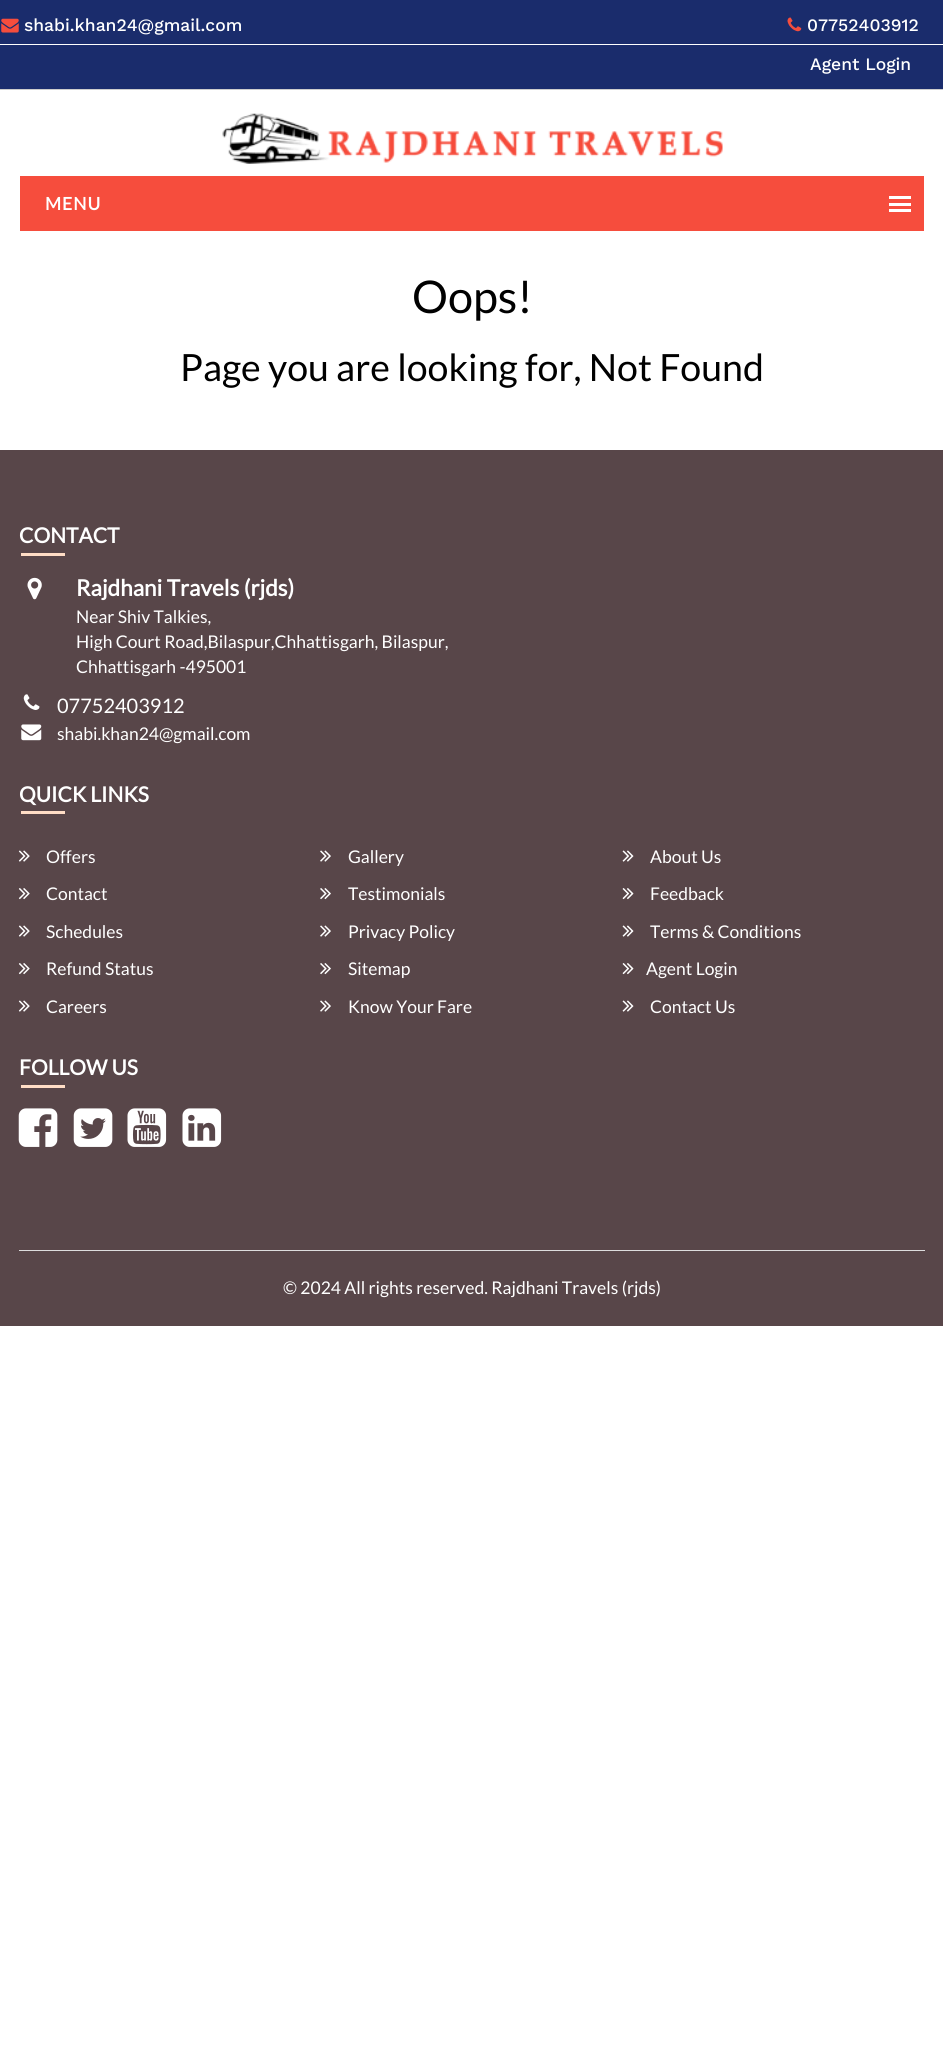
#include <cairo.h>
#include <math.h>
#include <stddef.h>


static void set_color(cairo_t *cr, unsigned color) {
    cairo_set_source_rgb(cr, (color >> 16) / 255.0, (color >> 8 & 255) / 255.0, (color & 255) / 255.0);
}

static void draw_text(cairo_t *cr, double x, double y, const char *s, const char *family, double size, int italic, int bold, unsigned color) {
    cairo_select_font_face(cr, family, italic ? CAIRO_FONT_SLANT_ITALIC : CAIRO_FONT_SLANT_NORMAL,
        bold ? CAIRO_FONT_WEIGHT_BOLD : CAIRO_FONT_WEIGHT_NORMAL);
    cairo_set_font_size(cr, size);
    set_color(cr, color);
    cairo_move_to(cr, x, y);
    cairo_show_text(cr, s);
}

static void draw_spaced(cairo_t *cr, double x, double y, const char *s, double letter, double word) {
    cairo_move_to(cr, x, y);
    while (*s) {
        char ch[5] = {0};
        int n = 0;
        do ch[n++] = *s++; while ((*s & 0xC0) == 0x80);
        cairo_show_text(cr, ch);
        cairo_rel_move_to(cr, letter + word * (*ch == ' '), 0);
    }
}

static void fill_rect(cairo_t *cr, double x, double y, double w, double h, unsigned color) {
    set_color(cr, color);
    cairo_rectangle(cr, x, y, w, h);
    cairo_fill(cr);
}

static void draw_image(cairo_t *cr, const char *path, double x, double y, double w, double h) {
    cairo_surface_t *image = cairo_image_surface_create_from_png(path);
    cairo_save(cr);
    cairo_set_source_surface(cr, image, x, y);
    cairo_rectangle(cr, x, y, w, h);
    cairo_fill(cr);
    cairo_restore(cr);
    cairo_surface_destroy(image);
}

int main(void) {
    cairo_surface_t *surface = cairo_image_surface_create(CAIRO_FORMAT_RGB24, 943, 2050);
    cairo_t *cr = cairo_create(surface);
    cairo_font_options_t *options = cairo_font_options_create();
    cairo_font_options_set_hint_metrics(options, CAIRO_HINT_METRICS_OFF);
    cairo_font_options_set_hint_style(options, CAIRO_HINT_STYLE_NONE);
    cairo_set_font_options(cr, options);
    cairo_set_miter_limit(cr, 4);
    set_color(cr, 0xFFFFFF);
    cairo_paint(cr);
    fill_rect(cr, 0, 0, 943, 89, 0x1A2C6C);
    fill_rect(cr, 0, 89, 943, 1, 0xCDCDCD);
    fill_rect(cr, 0, 44, 943, 1, 0xFFFFFF);
    draw_image(cr, "assets/img1.png", 1, 18, 18, 15);
    draw_text(cr, 24, 31, "shabi.khan24@gmail.com", "Work Sans Medium", 17.5, 0, 0, 0xFFFFFF);
    draw_image(cr, "assets/img2.png", 787, 17, 15, 15);
    draw_text(cr, 807, 31, "07752403912", "Work Sans Medium", 17.5, 0, 0, 0xFFFFFF);
    draw_text(cr, 810, 70, "Agent Login", "Work Sans Medium", 17.5, 0, 0, 0xFFFFFF);
    draw_image(cr, "assets/img3.png", 222, 113, 501, 51);
    fill_rect(cr, 20, 176, 904, 55, 0xF64D3D);
    cairo_select_font_face(cr, "Lato", CAIRO_FONT_SLANT_NORMAL, CAIRO_FONT_WEIGHT_BOLD);
    set_color(cr, 0xFFFFFF);
    draw_spaced(cr, 45, 210, "MENU", 1, 0);
    fill_rect(cr, 889, 196, 22, 3, 0xFFFFFF);
    fill_rect(cr, 889, 203, 22, 3, 0xFFFFFF);
    fill_rect(cr, 889, 209, 22, 3, 0xFFFFFF);
    draw_text(cr, 412, 313, "Oops!", "Lato", 45, 0, 0, 0x000000);
    draw_text(cr, 180, 381, "Page you are looking for, Not Found", "Lato", 37.5, 0, 0, 0x000000);
    fill_rect(cr, 0, 450, 943, 876, 0x584649);
    draw_text(cr, 19, 543, "CONTACT", "Lato", 21, 0, 1, 0xFFFFFF);
    fill_rect(cr, 21, 553, 44, 3, 0xFFDDC6);
    draw_image(cr, "assets/img4.png", 27, 577, 15, 23);
    draw_text(cr, 76, 596, "Rajdhani Travels (rjds)", "Lato", 22.5, 0, 1, 0xFFFFFF);
    draw_text(cr, 76, 623, "Near Shiv Talkies,", "Lato", 17.5, 0, 0, 0xFFFFFF);
    draw_text(cr, 76, 648, "High Court Road,Bilaspur,Chhattisgarh, Bilaspur,", "Lato", 17.5, 0, 0, 0xFFFFFF);
    draw_text(cr, 76, 673, "Chhattisgarh -495001", "Lato", 17.5, 0, 0, 0xFFFFFF);
    draw_image(cr, "assets/img5.png", 23, 694, 17, 16);
    draw_text(cr, 57, 713, "07752403912", "Lato", 20, 0, 0, 0xFFFFFF);
    draw_image(cr, "assets/img6.png", 21, 724, 21, 17);
    draw_text(cr, 57, 740, "shabi.khan24@gmail.com", "Lato", 17.5, 0, 0, 0xFFFFFF);
    draw_text(cr, 19, 802, "QUICK LINKS", "Lato", 21, 0, 1, 0xFFFFFF);
    fill_rect(cr, 21, 811, 44, 3, 0xFFDDC6);
    draw_image(cr, "assets/img7.png", 18, 850, 12, 12);
    draw_text(cr, 46, 863, "Offers", "Lato", 17.5, 0, 0, 0xFFFFFF);
    draw_image(cr, "assets/img8.png", 320, 850, 11, 12);
    draw_text(cr, 348, 863, "Gallery", "Lato", 17.5, 0, 0, 0xFFFFFF);
    draw_image(cr, "assets/img9.png", 622, 850, 12, 12);
    draw_text(cr, 650, 863, "About Us", "Lato", 17.5, 0, 0, 0xFFFFFF);
    draw_image(cr, "assets/img10.png", 18, 888, 12, 12);
    draw_text(cr, 46, 900, "Contact", "Lato", 17.5, 0, 0, 0xFFFFFF);
    draw_image(cr, "assets/img11.png", 320, 888, 11, 12);
    draw_text(cr, 348, 900, "Testimonials", "Lato", 17.5, 0, 0, 0xFFFFFF);
    draw_image(cr, "assets/img12.png", 622, 888, 12, 12);
    draw_text(cr, 650, 900, "Feedback", "Lato", 17.5, 0, 0, 0xFFFFFF);
    draw_image(cr, "assets/img7.png", 18, 925, 12, 12);
    draw_text(cr, 46, 938, "Schedules", "Lato", 17.5, 0, 0, 0xFFFFFF);
    draw_image(cr, "assets/img8.png", 320, 925, 11, 12);
    draw_text(cr, 348, 938, "Privacy Policy", "Lato", 17.5, 0, 0, 0xFFFFFF);
    draw_image(cr, "assets/img9.png", 622, 925, 12, 12);
    draw_text(cr, 650, 938, "Terms & Conditions", "Lato", 17.5, 0, 0, 0xFFFFFF);
    draw_image(cr, "assets/img10.png", 18, 963, 12, 12);
    draw_text(cr, 46, 975, "Refund Status", "Lato", 17.5, 0, 0, 0xFFFFFF);
    draw_image(cr, "assets/img11.png", 320, 963, 11, 12);
    draw_text(cr, 348, 975, "Sitemap", "Lato", 17.5, 0, 0, 0xFFFFFF);
    draw_image(cr, "assets/img12.png", 622, 963, 12, 12);
    draw_text(cr, 646, 975, "Agent Login", "Lato", 17.5, 0, 0, 0xFFFFFF);
    draw_image(cr, "assets/img7.png", 18, 1000, 12, 12);
    draw_text(cr, 46, 1013, "Careers", "Lato", 17.5, 0, 0, 0xFFFFFF);
    draw_image(cr, "assets/img8.png", 320, 1000, 11, 12);
    draw_text(cr, 348, 1013, "Know Your Fare", "Lato", 17.5, 0, 0, 0xFFFFFF);
    draw_image(cr, "assets/img9.png", 622, 1000, 12, 12);
    draw_text(cr, 650, 1013, "Contact Us", "Lato", 17.5, 0, 0, 0xFFFFFF);
    draw_text(cr, 19, 1075, "FOLLOW US", "Lato", 21, 0, 1, 0xFFFFFF);
    fill_rect(cr, 21, 1085, 44, 3, 0xFFDDC6);
    draw_image(cr, "assets/img13.png", 18, 1108, 40, 39);
    draw_image(cr, "assets/img14.png", 73, 1108, 40, 39);
    draw_image(cr, "assets/img15.png", 127, 1108, 40, 39);
    draw_image(cr, "assets/img16.png", 182, 1108, 40, 39);
    fill_rect(cr, 19, 1250, 906, 1, 0xDDDDDD);
    draw_text(cr, 283, 1294, "© 2024 All rights reserved. Rajdhani Travels (rjds)", "Lato", 17.5, 0, 0, 0xFFFFFF);
    cairo_surface_write_to_png(surface, "output.png");
    cairo_font_options_destroy(options);
    cairo_destroy(cr);
    cairo_surface_destroy(surface);
    return 0;
}
